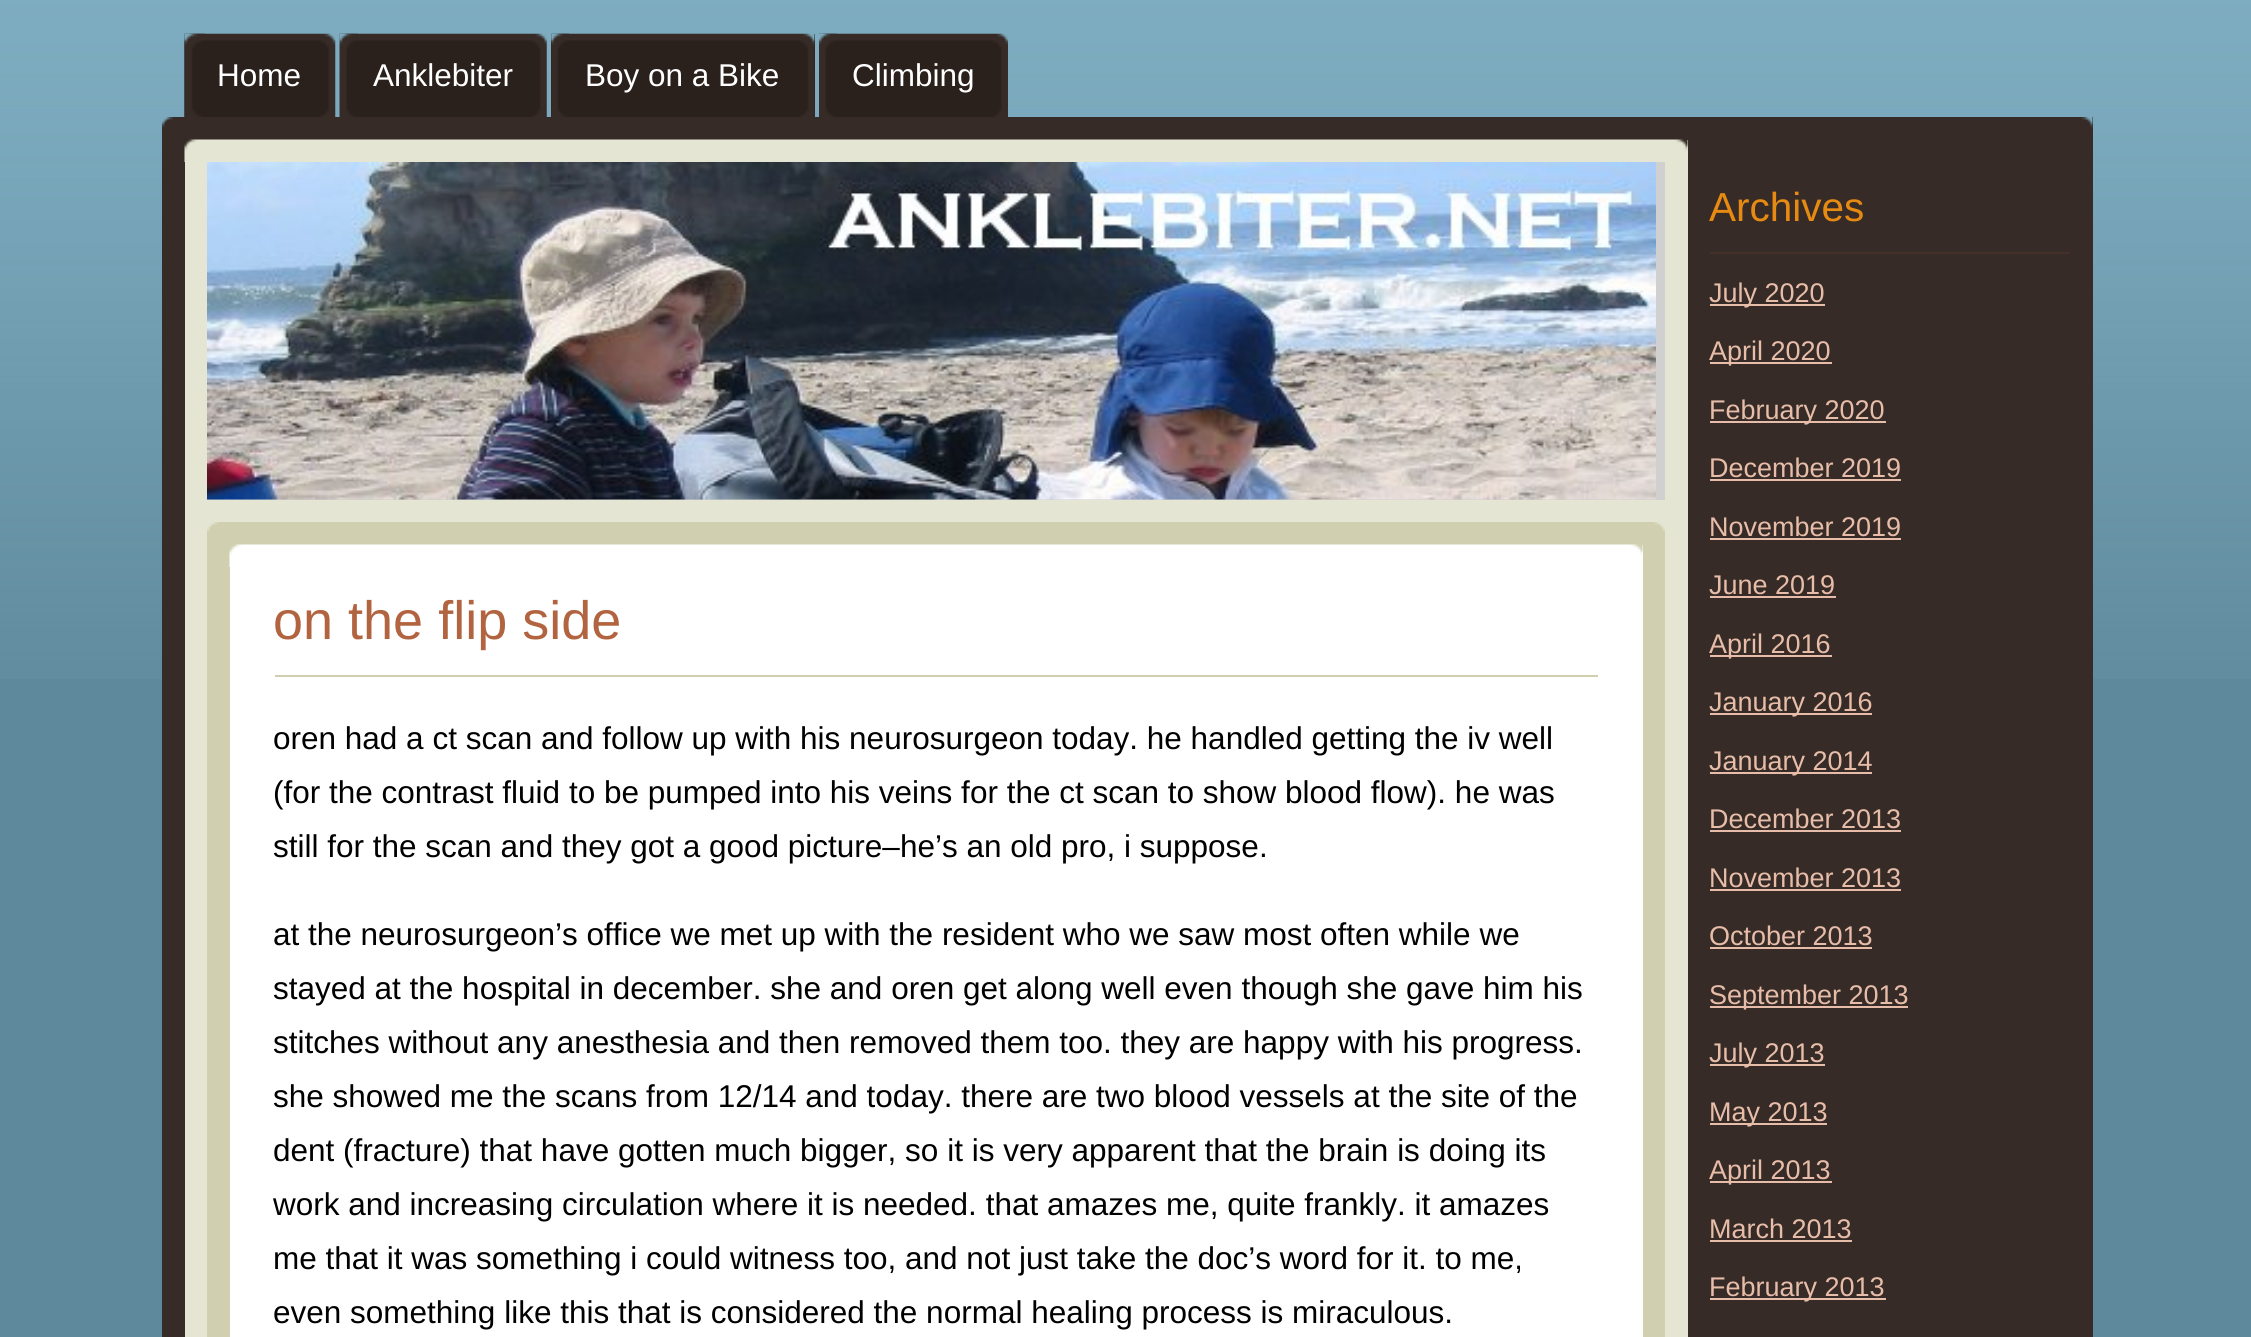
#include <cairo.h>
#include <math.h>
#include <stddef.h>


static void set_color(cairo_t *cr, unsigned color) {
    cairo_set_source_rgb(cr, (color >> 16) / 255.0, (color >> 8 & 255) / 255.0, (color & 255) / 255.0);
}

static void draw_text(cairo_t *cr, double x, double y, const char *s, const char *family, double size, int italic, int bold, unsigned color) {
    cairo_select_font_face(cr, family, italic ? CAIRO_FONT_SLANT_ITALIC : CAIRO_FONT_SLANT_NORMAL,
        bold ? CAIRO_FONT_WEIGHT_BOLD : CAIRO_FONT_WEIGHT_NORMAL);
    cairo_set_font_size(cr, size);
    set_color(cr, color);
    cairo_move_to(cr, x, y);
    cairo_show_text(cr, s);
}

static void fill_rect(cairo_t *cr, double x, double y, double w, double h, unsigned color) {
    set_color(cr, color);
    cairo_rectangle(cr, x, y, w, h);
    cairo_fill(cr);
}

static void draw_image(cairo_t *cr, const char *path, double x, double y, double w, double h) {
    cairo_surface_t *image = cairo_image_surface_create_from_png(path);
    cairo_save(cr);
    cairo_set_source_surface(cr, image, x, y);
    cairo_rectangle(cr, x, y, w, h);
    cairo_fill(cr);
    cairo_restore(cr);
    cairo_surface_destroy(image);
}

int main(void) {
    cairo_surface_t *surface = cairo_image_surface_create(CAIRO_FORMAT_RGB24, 2251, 1337);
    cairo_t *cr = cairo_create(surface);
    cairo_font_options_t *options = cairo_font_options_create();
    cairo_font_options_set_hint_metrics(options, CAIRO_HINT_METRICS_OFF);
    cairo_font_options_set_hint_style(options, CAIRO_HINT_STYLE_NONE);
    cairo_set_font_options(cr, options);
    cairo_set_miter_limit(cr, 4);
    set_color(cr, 0x5E889B);
    cairo_paint(cr);
    draw_image(cr, "assets/img1.png", 0, 0, 2251, 679);
    draw_image(cr, "assets/img2.png", 184, 33, 152, 84);
    draw_image(cr, "assets/img3.png", 184, 33, 21, 84);
    draw_text(cr, 217, 86, "Home", "Liberation Sans", 31.5, 0, 0, 0xFFFFFF);
    draw_image(cr, "assets/img4.png", 339, 33, 208, 84);
    draw_image(cr, "assets/img5.png", 339, 33, 19, 84);
    draw_text(cr, 373, 86, "Anklebiter", "Liberation Sans", 31.5, 0, 0, 0xFFFFFF);
    fill_rect(cr, 551, 34, 264, 83, 0x2A201C);
    draw_image(cr, "assets/img6.png", 551, 33, 264, 84);
    draw_image(cr, "assets/img7.png", 551, 33, 19, 84);
    draw_text(cr, 585, 86, "Boy on a Bike", "Liberation Sans", 31.5, 0, 0, 0xFFFFFF);
    draw_image(cr, "assets/img8.png", 819, 33, 189, 84);
    draw_image(cr, "assets/img9.png", 819, 33, 18, 84);
    draw_text(cr, 852, 86, "Climbing", "Liberation Sans", 31.5, 0, 0, 0xFFFFFF);
    fill_rect(cr, 162, 117, 1931, 1220, 0x362B26);
    draw_image(cr, "assets/img10.png", 162, 117, 1931, 11);
    fill_rect(cr, 185, 140, 1503, 1197, 0xE5E5D4);
    draw_image(cr, "assets/img11.png", 184, 139, 1504, 23);
    fill_rect(cr, 207, 162, 1458, 338, 0xD0D0D1);
    draw_image(cr, "assets/img12.png", 207, 162, 1449, 338);
    fill_rect(cr, 207, 532, 1458, 805, 0xD0D0B1);
    draw_image(cr, "assets/img13.png", 207, 522, 1458, 10);
    fill_rect(cr, 230, 545, 1413, 792, 0xFFFFFF);
    draw_image(cr, "assets/img14.png", 229, 544, 1414, 23);
    fill_rect(cr, 275, 675, 1323, 2, 0xD0D0B1);
    draw_text(cr, 273, 639, "on the flip side", "Liberation Sans", 54, 0, 0, 0xB1643F);
    draw_text(cr, 273, 749, "oren had a ct scan and follow up with his neurosurgeon today. he handled getting the iv well", "Liberation Sans", 31.5, 0, 0, 0x000000);
    draw_text(cr, 273, 803, "(for the contrast fluid to be pumped into his veins for the ct scan to show blood flow). he was", "Liberation Sans", 31.5, 0, 0, 0x000000);
    draw_text(cr, 273, 857, "still for the scan and they got a good picture–he’s an old pro, i suppose.", "Liberation Sans", 31.5, 0, 0, 0x000000);
    draw_text(cr, 273, 945, "at the neurosurgeon’s office we met up with the resident who we saw most often while we", "Liberation Sans", 31.5, 0, 0, 0x000000);
    draw_text(cr, 273, 999, "stayed at the hospital in december. she and oren get along well even though she gave him his", "Liberation Sans", 31.5, 0, 0, 0x000000);
    draw_text(cr, 273, 1053, "stitches without any anesthesia and then removed them too. they are happy with his progress.", "Liberation Sans", 31.5, 0, 0, 0x000000);
    draw_text(cr, 273, 1107, "she showed me the scans from 12/14 and today. there are two blood vessels at the site of the", "Liberation Sans", 31.5, 0, 0, 0x000000);
    draw_text(cr, 273, 1161, "dent (fracture) that have gotten much bigger, so it is very apparent that the brain is doing its", "Liberation Sans", 31.5, 0, 0, 0x000000);
    draw_text(cr, 273, 1215, "work and increasing circulation where it is needed. that amazes me, quite frankly. it amazes", "Liberation Sans", 31.5, 0, 0, 0x000000);
    draw_text(cr, 273, 1269, "me that it was something i could witness too, and not just take the doc’s word for it. to me,", "Liberation Sans", 31.5, 0, 0, 0x000000);
    draw_text(cr, 273, 1323, "even something like this that is considered the normal healing process is miraculous.", "Liberation Sans", 31.5, 0, 0, 0x000000);
    fill_rect(cr, 1710, 252, 360, 2, 0x433129);
    draw_text(cr, 1709, 221, "Archives", "Liberation Sans", 40.5, 0, 0, 0xE78A12);
    fill_rect(cr, 1710, 304, 115, 2, 0xE7BDA9);
    draw_text(cr, 1709, 302, "July 2020", "Liberation Sans", 27, 0, 0, 0xE7BDA9);
    fill_rect(cr, 1710, 362, 122, 2, 0xE7BDA9);
    draw_text(cr, 1709, 360, "April 2020", "Liberation Sans", 27, 0, 0, 0xE7BDA9);
    fill_rect(cr, 1710, 421, 176, 2, 0xE7BDA9);
    draw_text(cr, 1709, 419, "February 2020", "Liberation Sans", 27, 0, 0, 0xE7BDA9);
    draw_text(cr, 1709, 477, "December 2019", "Liberation Sans", 27, 0, 0, 0xE7BDA9);
    fill_rect(cr, 1710, 479, 191, 2, 0xE7BDA9);
    draw_text(cr, 1709, 536, "November 2019", "Liberation Sans", 27, 0, 0, 0xE7BDA9);
    fill_rect(cr, 1710, 538, 191, 2, 0xE7BDA9);
    draw_text(cr, 1709, 594, "June 2019", "Liberation Sans", 27, 0, 0, 0xE7BDA9);
    fill_rect(cr, 1710, 596, 126, 2, 0xE7BDA9);
    fill_rect(cr, 1710, 655, 122, 2, 0xE7BDA9);
    draw_text(cr, 1709, 653, "April 2016", "Liberation Sans", 27, 0, 0, 0xE7BDA9);
    fill_rect(cr, 1710, 713, 162, 2, 0xE7BDA9);
    draw_text(cr, 1709, 711, "January 2016", "Liberation Sans", 27, 0, 0, 0xE7BDA9);
    fill_rect(cr, 1710, 772, 162, 2, 0xE7BDA9);
    draw_text(cr, 1709, 770, "January 2014", "Liberation Sans", 27, 0, 0, 0xE7BDA9);
    draw_text(cr, 1709, 828, "December 2013", "Liberation Sans", 27, 0, 0, 0xE7BDA9);
    fill_rect(cr, 1710, 830, 191, 2, 0xE7BDA9);
    draw_text(cr, 1709, 887, "November 2013", "Liberation Sans", 27, 0, 0, 0xE7BDA9);
    fill_rect(cr, 1710, 889, 191, 2, 0xE7BDA9);
    draw_text(cr, 1709, 945, "October 2013", "Liberation Sans", 27, 0, 0, 0xE7BDA9);
    fill_rect(cr, 1710, 947, 162, 2, 0xE7BDA9);
    fill_rect(cr, 1710, 1006, 198, 2, 0xE7BDA9);
    draw_text(cr, 1709, 1004, "September 2013", "Liberation Sans", 27, 0, 0, 0xE7BDA9);
    fill_rect(cr, 1710, 1064, 115, 2, 0xE7BDA9);
    draw_text(cr, 1709, 1062, "July 2013", "Liberation Sans", 27, 0, 0, 0xE7BDA9);
    fill_rect(cr, 1710, 1123, 117, 2, 0xE7BDA9);
    draw_text(cr, 1709, 1121, "May 2013", "Liberation Sans", 27, 0, 0, 0xE7BDA9);
    fill_rect(cr, 1710, 1181, 122, 2, 0xE7BDA9);
    draw_text(cr, 1709, 1179, "April 2013", "Liberation Sans", 27, 0, 0, 0xE7BDA9);
    draw_text(cr, 1709, 1238, "March 2013", "Liberation Sans", 27, 0, 0, 0xE7BDA9);
    fill_rect(cr, 1710, 1240, 142, 2, 0xE7BDA9);
    fill_rect(cr, 1710, 1298, 176, 2, 0xE7BDA9);
    draw_text(cr, 1709, 1296, "February 2013", "Liberation Sans", 27, 0, 0, 0xE7BDA9);
    cairo_surface_write_to_png(surface, "output.png");
    cairo_font_options_destroy(options);
    cairo_destroy(cr);
    cairo_surface_destroy(surface);
    return 0;
}
